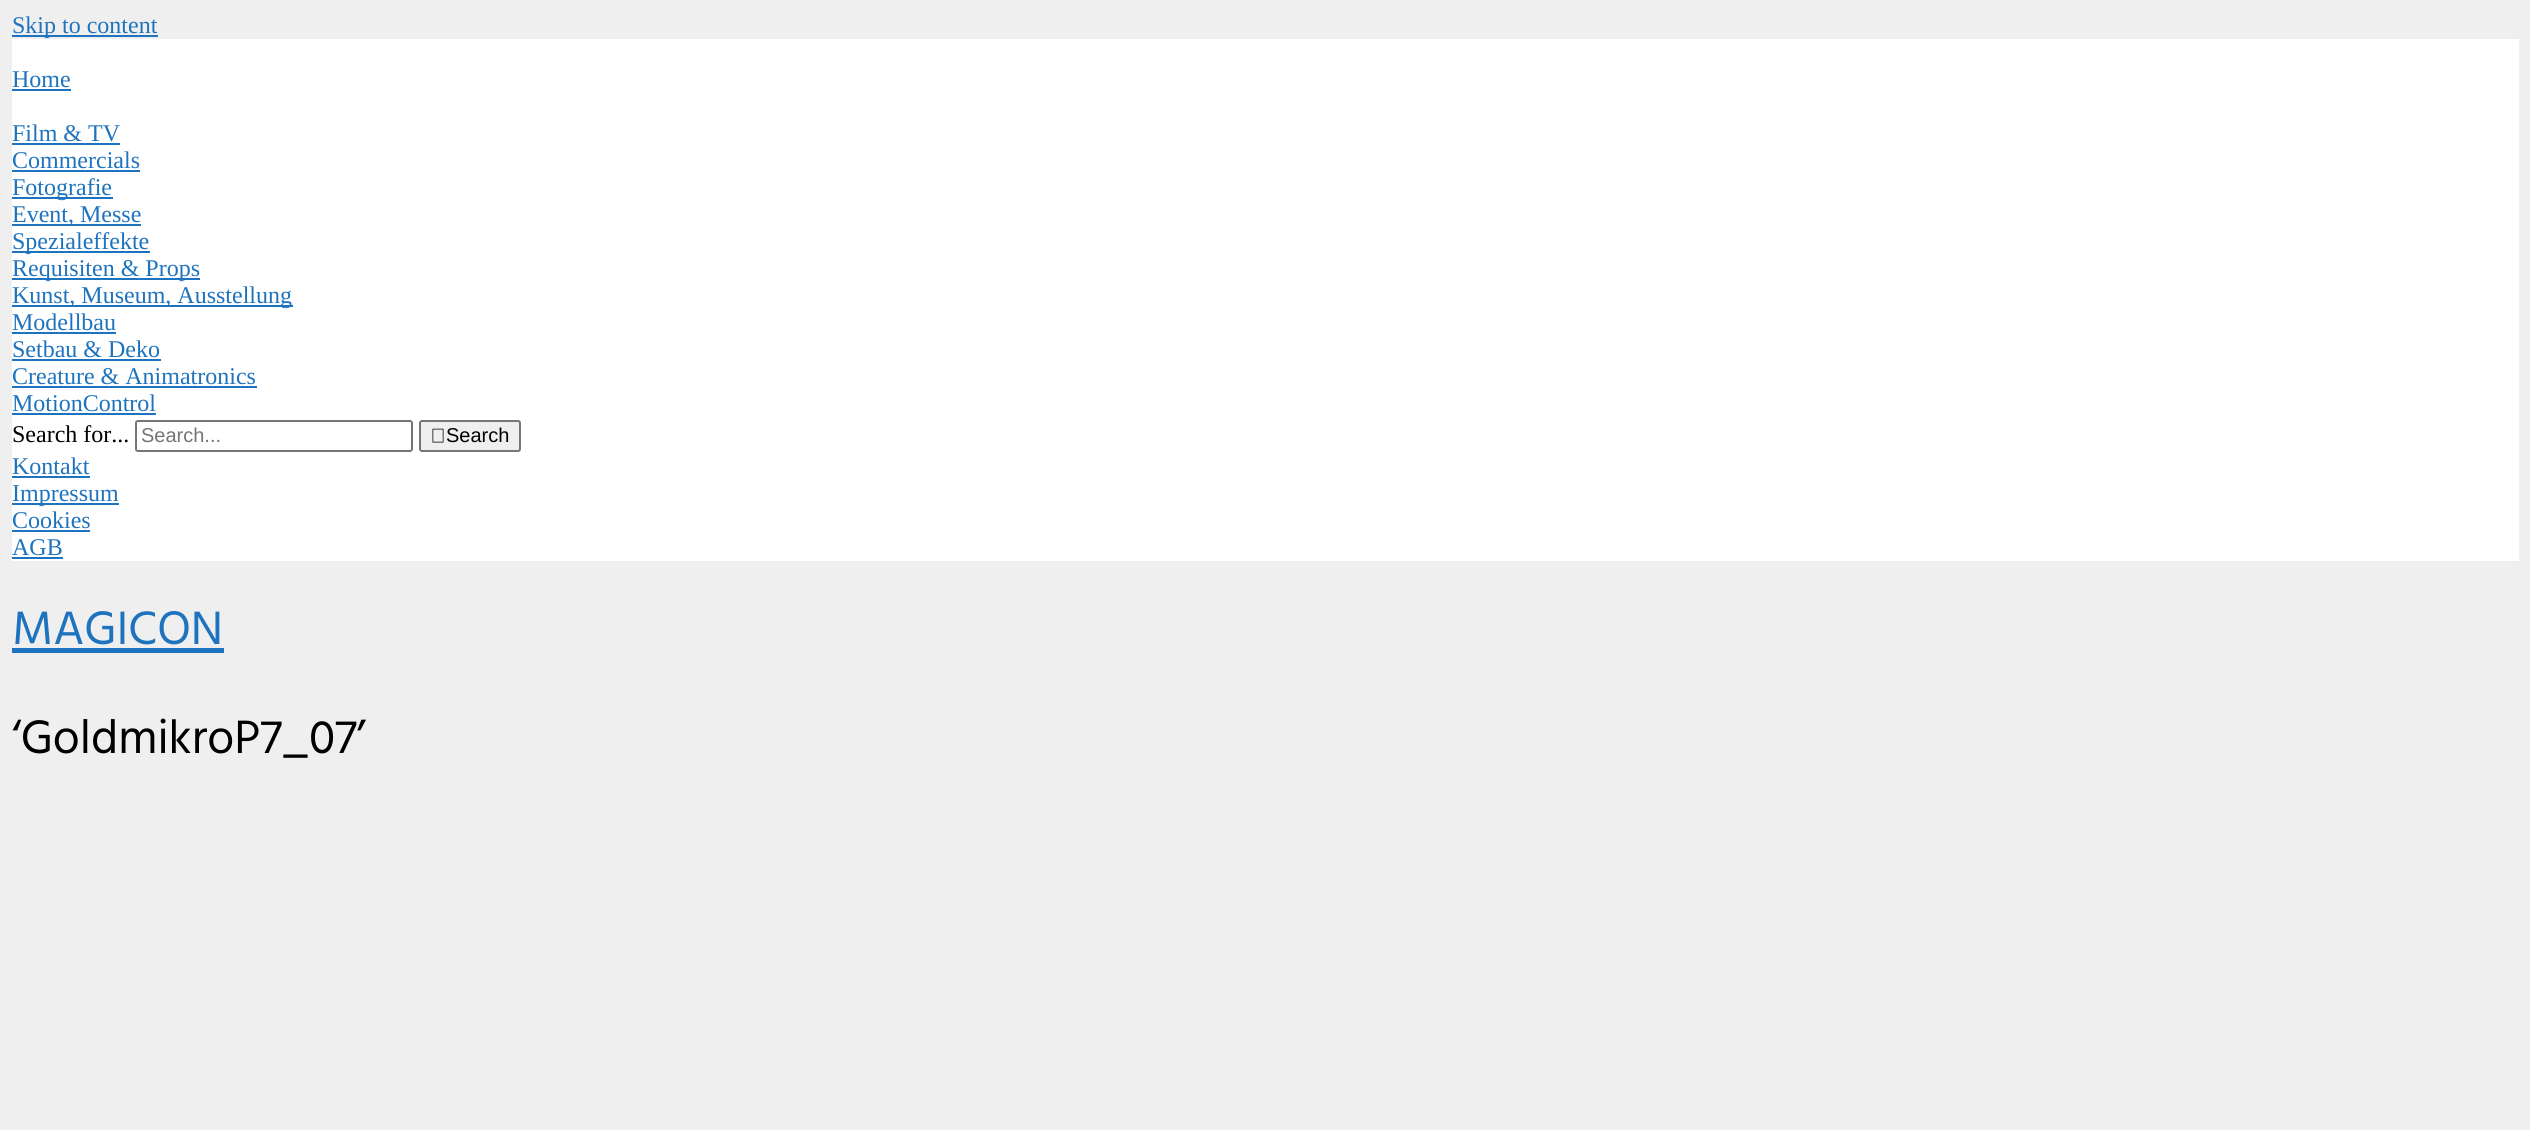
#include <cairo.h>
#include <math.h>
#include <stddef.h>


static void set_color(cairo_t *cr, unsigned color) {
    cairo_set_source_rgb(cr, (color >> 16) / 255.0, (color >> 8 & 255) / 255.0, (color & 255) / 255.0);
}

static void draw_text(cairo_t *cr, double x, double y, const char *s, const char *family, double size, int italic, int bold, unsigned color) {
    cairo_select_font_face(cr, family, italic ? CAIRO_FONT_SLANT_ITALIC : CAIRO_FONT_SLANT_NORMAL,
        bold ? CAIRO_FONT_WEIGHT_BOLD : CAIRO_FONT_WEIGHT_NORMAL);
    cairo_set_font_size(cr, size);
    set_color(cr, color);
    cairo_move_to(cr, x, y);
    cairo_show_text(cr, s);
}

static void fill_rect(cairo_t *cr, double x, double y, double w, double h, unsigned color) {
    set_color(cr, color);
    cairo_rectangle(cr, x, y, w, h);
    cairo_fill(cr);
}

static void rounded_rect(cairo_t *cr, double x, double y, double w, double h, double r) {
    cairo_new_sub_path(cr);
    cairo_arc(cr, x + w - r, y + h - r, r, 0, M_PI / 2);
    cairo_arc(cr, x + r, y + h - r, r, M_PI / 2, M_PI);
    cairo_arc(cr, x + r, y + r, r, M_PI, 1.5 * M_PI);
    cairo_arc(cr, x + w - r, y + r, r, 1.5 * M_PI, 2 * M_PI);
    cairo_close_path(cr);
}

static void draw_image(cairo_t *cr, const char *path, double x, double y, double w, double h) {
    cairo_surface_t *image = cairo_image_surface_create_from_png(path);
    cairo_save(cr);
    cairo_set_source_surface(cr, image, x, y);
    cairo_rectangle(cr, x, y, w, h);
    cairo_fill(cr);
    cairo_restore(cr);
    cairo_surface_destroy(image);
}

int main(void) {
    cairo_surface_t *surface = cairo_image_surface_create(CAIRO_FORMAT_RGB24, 2530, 1130);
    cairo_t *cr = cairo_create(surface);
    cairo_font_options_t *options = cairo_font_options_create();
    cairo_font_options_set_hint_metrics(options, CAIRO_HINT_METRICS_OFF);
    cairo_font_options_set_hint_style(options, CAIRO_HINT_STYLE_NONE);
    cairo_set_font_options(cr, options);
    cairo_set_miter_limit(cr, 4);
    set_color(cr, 0xEFEFEF);
    cairo_paint(cr);
    fill_rect(cr, 12, 35, 146, 2, 0x1E73BE);
    draw_text(cr, 12, 33, "Skip to content", "Liberation Serif", 24, 0, 0, 0x1E73BE);
    fill_rect(cr, 12, 39, 2507, 522, 0xFFFFFF);
    draw_text(cr, 12, 87, "Home", "Liberation Serif", 24, 0, 0, 0x1E73BE);
    fill_rect(cr, 12, 89, 59, 2, 0x1E73BE);
    draw_text(cr, 12, 141, "Film & TV", "Liberation Serif", 24, 0, 0, 0x1E73BE);
    fill_rect(cr, 12, 143, 108, 2, 0x1E73BE);
    draw_text(cr, 12, 168, "Commercials", "Liberation Serif", 24, 0, 0, 0x1E73BE);
    fill_rect(cr, 12, 170, 128, 2, 0x1E73BE);
    fill_rect(cr, 12, 197, 101, 2, 0x1E73BE);
    draw_text(cr, 12, 195, "Fotografie", "Liberation Serif", 24, 0, 0, 0x1E73BE);
    fill_rect(cr, 12, 224, 129, 2, 0x1E73BE);
    draw_text(cr, 12, 222, "Event, Messe", "Liberation Serif", 24, 0, 0, 0x1E73BE);
    fill_rect(cr, 12, 251, 138, 2, 0x1E73BE);
    draw_text(cr, 12, 249, "Spezialeffekte", "Liberation Serif", 24, 0, 0, 0x1E73BE);
    fill_rect(cr, 12, 278, 188, 2, 0x1E73BE);
    draw_text(cr, 12, 276, "Requisiten & Props", "Liberation Serif", 24, 0, 0, 0x1E73BE);
    fill_rect(cr, 12, 305, 281, 2, 0x1E73BE);
    draw_text(cr, 12, 303, "Kunst, Museum, Ausstellung", "Liberation Serif", 24, 0, 0, 0x1E73BE);
    draw_text(cr, 12, 330, "Modellbau", "Liberation Serif", 24, 0, 0, 0x1E73BE);
    fill_rect(cr, 12, 332, 104, 2, 0x1E73BE);
    draw_text(cr, 12, 357, "Setbau & Deko", "Liberation Serif", 24, 0, 0, 0x1E73BE);
    fill_rect(cr, 12, 359, 149, 2, 0x1E73BE);
    draw_text(cr, 12, 384, "Creature & Animatronics", "Liberation Serif", 24, 0, 0, 0x1E73BE);
    fill_rect(cr, 12, 386, 245, 2, 0x1E73BE);
    draw_text(cr, 12, 411, "MotionControl", "Liberation Serif", 24, 0, 0, 0x1E73BE);
    fill_rect(cr, 12, 413, 144, 2, 0x1E73BE);
    draw_text(cr, 12, 442, "Search for...", "Liberation Serif", 24, 0, 0, 0x000000);
    rounded_rect(cr, 136, 421, 276, 30, 2);
    set_color(cr, 0x767676);
    cairo_stroke(cr);
    draw_text(cr, 141, 442, "Search...", "Liberation Sans", 20, 0, 0, 0x757575);
    set_color(cr, 0xEFEFEF);
    rounded_rect(cr, 420, 421, 100, 30, 2);
    cairo_fill_preserve(cr);
    set_color(cr, 0x767676);
    cairo_stroke(cr);
    draw_image(cr, "assets/img1.png", 432, 428, 12, 15);
    draw_text(cr, 446, 442, "Search", "Liberation Sans", 20, 0, 0, 0x000000);
    draw_text(cr, 12, 474, "Kontakt", "Liberation Serif", 24, 0, 0, 0x1E73BE);
    fill_rect(cr, 12, 476, 78, 2, 0x1E73BE);
    fill_rect(cr, 12, 503, 107, 2, 0x1E73BE);
    draw_text(cr, 12, 501, "Impressum", "Liberation Serif", 24, 0, 0, 0x1E73BE);
    draw_text(cr, 12, 528, "Cookies", "Liberation Serif", 24, 0, 0, 0x1E73BE);
    fill_rect(cr, 12, 530, 78, 2, 0x1E73BE);
    draw_text(cr, 12, 555, "AGB", "Liberation Serif", 24, 0, 0, 0x1E73BE);
    fill_rect(cr, 12, 557, 51, 2, 0x1E73BE);
    draw_text(cr, 12, 644, "MAGICON", "Hind", 48, 0, 0, 0x1E73BE);
    fill_rect(cr, 12, 648, 212, 5, 0x1E73BE);
    draw_text(cr, 12, 753, "‘GoldmikroP7_07’", "Hind", 48, 0, 0, 0x000000);
    cairo_surface_write_to_png(surface, "output.png");
    cairo_font_options_destroy(options);
    cairo_destroy(cr);
    cairo_surface_destroy(surface);
    return 0;
}
